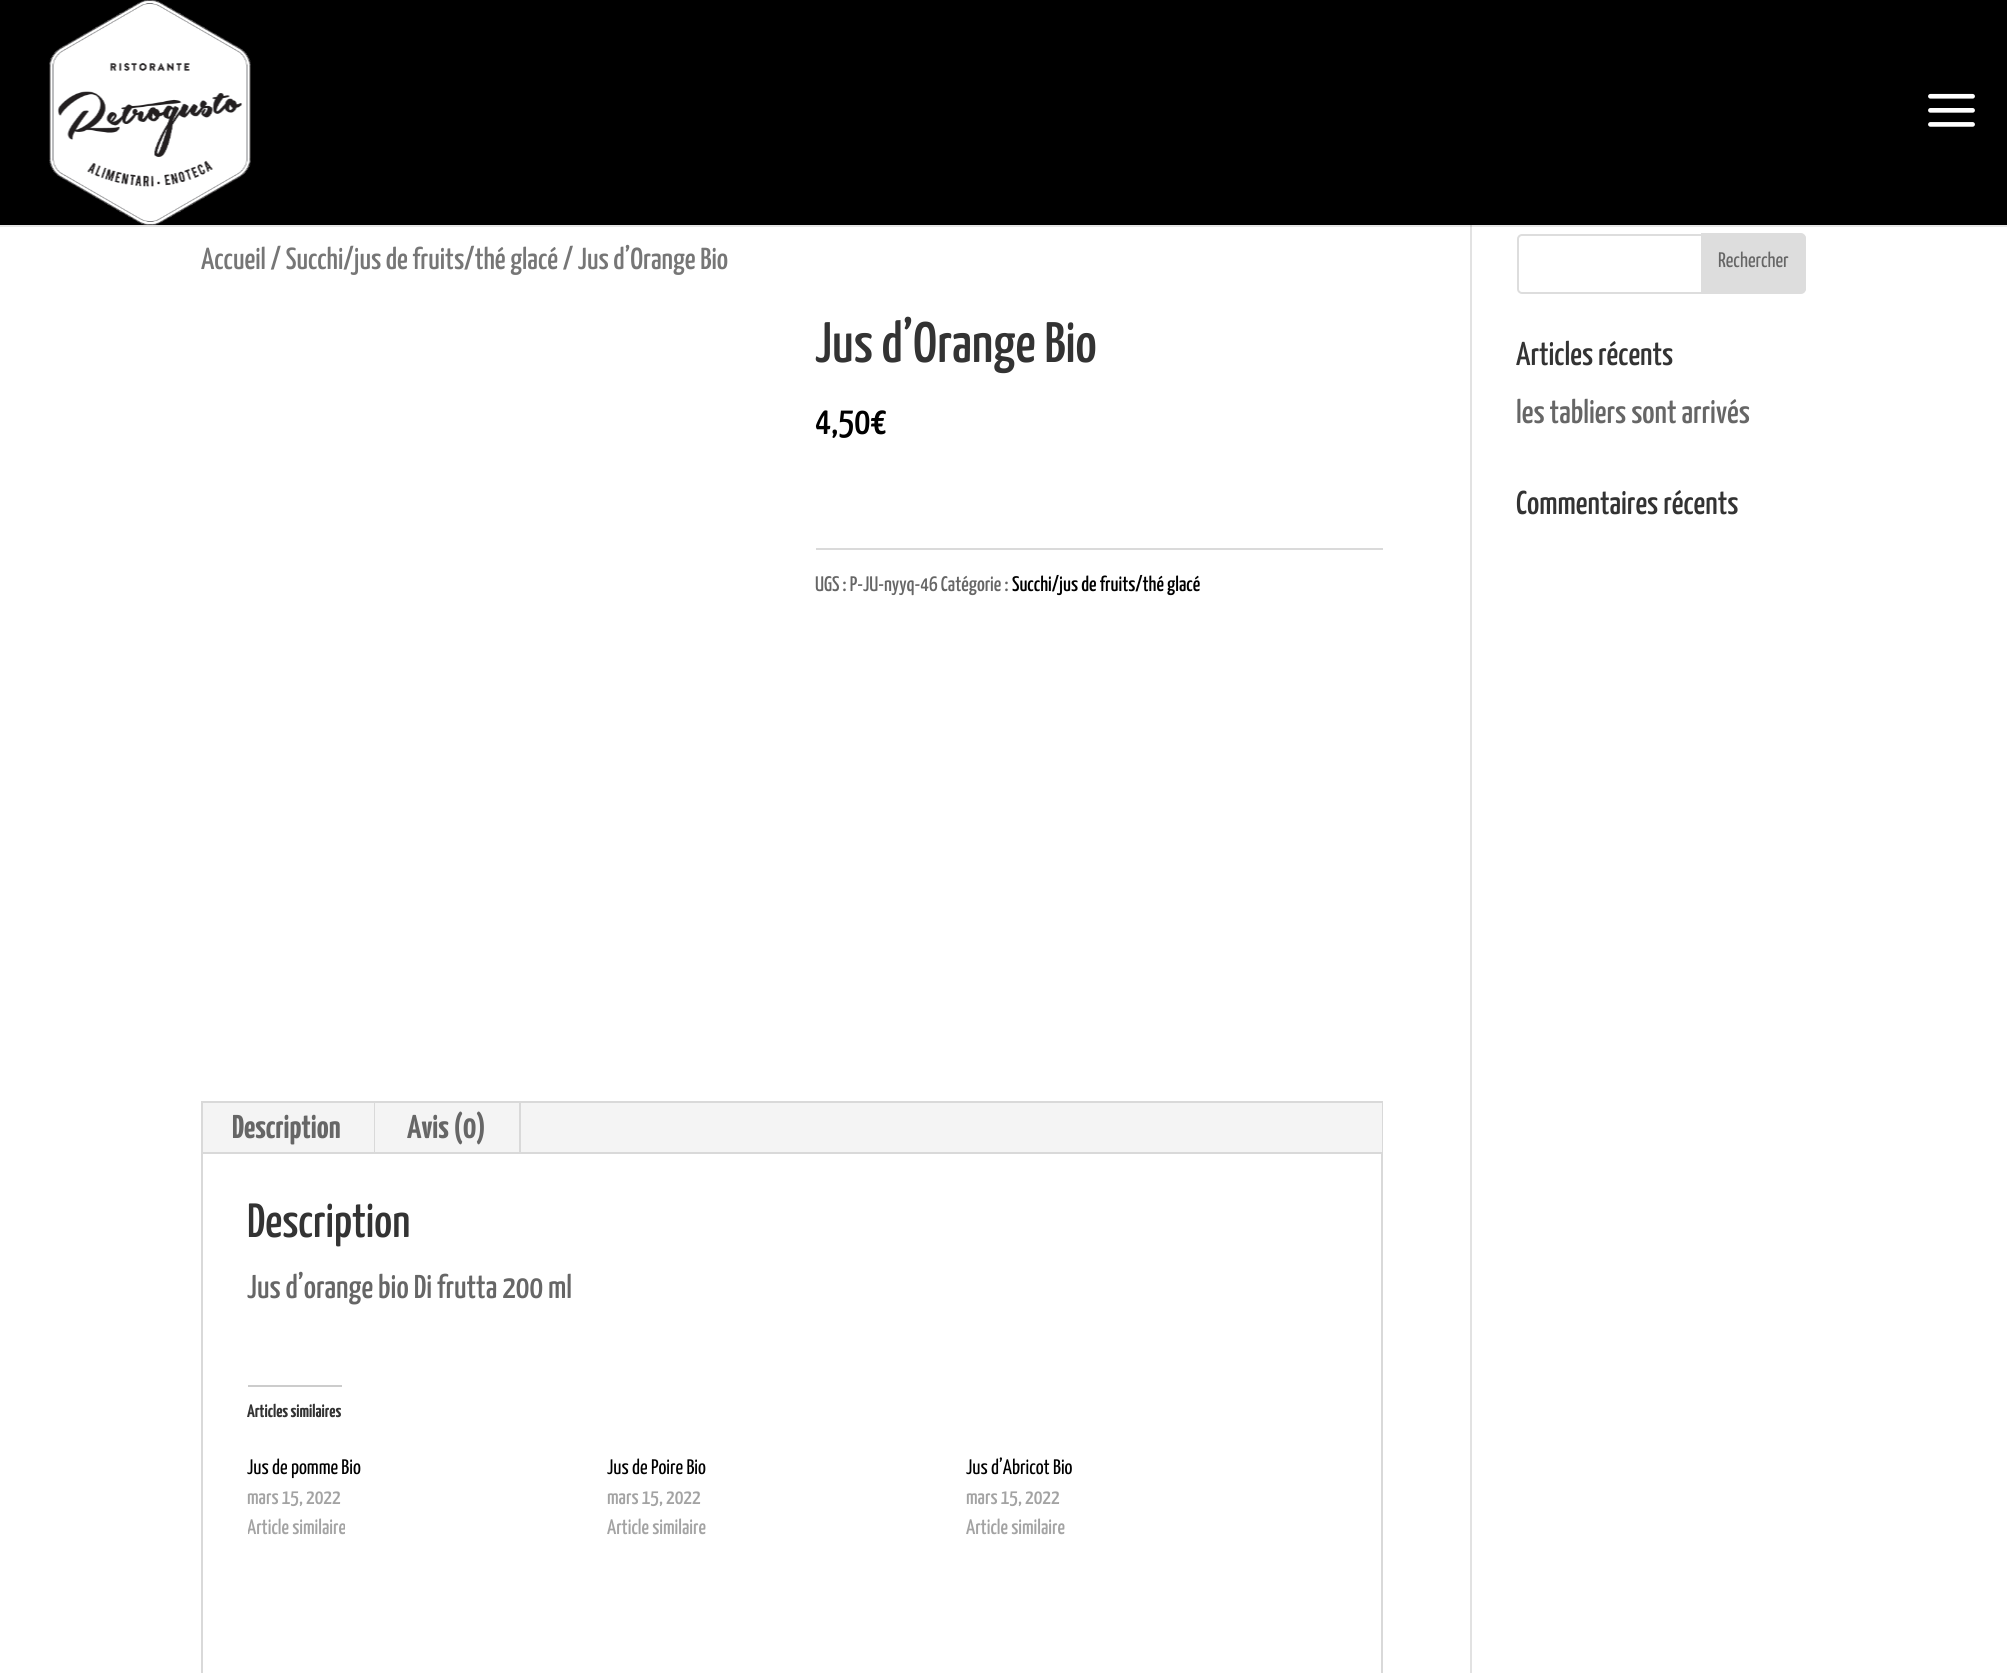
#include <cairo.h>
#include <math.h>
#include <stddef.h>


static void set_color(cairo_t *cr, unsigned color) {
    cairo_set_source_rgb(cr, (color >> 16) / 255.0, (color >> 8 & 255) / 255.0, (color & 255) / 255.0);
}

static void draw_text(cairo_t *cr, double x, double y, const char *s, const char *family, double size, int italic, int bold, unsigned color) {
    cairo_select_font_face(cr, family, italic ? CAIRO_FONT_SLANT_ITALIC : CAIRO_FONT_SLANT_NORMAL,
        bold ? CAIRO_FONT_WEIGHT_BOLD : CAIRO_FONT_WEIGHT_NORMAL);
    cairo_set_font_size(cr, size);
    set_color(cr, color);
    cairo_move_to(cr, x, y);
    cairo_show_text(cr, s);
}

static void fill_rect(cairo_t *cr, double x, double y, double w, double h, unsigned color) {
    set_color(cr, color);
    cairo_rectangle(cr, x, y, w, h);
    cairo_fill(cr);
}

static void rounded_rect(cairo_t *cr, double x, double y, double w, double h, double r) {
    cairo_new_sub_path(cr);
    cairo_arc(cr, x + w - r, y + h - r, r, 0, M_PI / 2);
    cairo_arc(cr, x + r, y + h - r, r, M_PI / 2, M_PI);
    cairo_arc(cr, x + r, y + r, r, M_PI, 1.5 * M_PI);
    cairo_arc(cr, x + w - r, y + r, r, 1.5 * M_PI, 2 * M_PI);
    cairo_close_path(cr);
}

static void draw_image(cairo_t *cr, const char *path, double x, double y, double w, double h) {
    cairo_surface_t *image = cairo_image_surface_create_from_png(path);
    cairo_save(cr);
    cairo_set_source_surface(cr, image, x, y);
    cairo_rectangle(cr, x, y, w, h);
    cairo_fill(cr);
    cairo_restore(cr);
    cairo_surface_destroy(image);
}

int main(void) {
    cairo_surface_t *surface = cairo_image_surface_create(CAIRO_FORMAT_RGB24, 2007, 1673);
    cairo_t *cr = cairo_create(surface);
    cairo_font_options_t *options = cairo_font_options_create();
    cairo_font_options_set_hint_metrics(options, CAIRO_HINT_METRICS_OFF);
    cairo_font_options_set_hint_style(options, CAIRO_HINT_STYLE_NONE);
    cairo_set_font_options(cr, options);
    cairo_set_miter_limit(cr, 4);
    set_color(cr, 0xFFFFFF);
    cairo_paint(cr);
    fill_rect(cr, 0, 225, 2007, 2, 0xE6E6E6);
    fill_rect(cr, 0, 0, 2007, 225, 0x000000);
    draw_image(cr, "assets/img1.png", 49, 0, 202, 225);
    draw_image(cr, "assets/img2.png", 1928, 93, 47, 34);
    fill_rect(cr, 1470, 227, 2, 1446, 0xE2E2E2);
    fill_rect(cr, 1470, 225, 2, 2, 0xCBCBCB);
    draw_text(cr, 201, 269, "Accueil / Succhi/jus de fruits/thé glacé / Jus d’Orange Bio", "Yanone Kaffeesatz Medium", 30.4, 0, 0, 0x767676);
    draw_text(cr, 815, 362, "Jus d’Orange Bio", "Yanone Kaffeesatz Medium", 57, 0, 0, 0x333333);
    draw_text(cr, 815, 434, "4,50€", "Yanone Kaffeesatz Medium", 39, 0, 0, 0x000000);
    fill_rect(cr, 816, 548, 567, 2, 0xDADADA);
    draw_text(cr, 815, 591, "UGS : P-JU-nyyq-46 Catégorie :", "Yanone Kaffeesatz Medium", 21, 0, 0, 0x666666);
    draw_text(cr, 1012, 591, "Succhi/jus de fruits/thé glacé", "Yanone Kaffeesatz Medium", 21, 0, 0, 0x000000);
    cairo_rectangle(cr, 202, 1102, 1180, 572);
    set_color(cr, 0xD9D9D9);
    cairo_stroke(cr);
    fill_rect(cr, 203, 1103, 1179, 49, 0xF4F4F4);
    fill_rect(cr, 374, 1103, 1, 51, 0xD9D9D9);
    draw_text(cr, 232, 1138, "Description", "Yanone Kaffeesatz", 33, 0, 1, 0x666666);
    fill_rect(cr, 519, 1103, 2, 51, 0xD9D9D9);
    draw_text(cr, 407, 1138, "Avis (0)", "Yanone Kaffeesatz", 33, 0, 1, 0x666666);
    fill_rect(cr, 203, 1152, 1179, 2, 0xD9D9D9);
    draw_text(cr, 247, 1237, "Description", "Yanone Kaffeesatz Medium", 48, 0, 0, 0x333333);
    draw_text(cr, 247, 1298, "Jus d’orange bio Di frutta 200 ml", "Yanone Kaffeesatz Medium", 33, 0, 0, 0x666666);
    fill_rect(cr, 248, 1385, 94, 2, 0xCCCCCC);
    draw_text(cr, 247, 1417, "Articles similaires", "Yanone Kaffeesatz", 18, 0, 1, 0x333333);
    draw_text(cr, 247, 1474, "Jus de pomme Bio", "Yanone Kaffeesatz", 21, 0, 0, 0x000000);
    draw_text(cr, 247, 1504, "mars 15, 2022", "Yanone Kaffeesatz Medium", 21, 0, 0, 0xA3A3A3);
    cairo_save(cr);
    cairo_rectangle(cr, 248, 1515, 322, 30);
    cairo_clip(cr);
    draw_text(cr, 247, 1534, "Article similaire", "Yanone Kaffeesatz Medium", 21, 0, 0, 0xA3A3A3);
    cairo_restore(cr);
    draw_text(cr, 607, 1474, "Jus de Poire Bio", "Yanone Kaffeesatz", 21, 0, 0, 0x000000);
    draw_text(cr, 607, 1504, "mars 15, 2022", "Yanone Kaffeesatz Medium", 21, 0, 0, 0xA3A3A3);
    draw_text(cr, 607, 1534, "Article similaire", "Yanone Kaffeesatz Medium", 21, 0, 0, 0xA3A3A3);
    draw_text(cr, 966, 1474, "Jus d’Abricot Bio", "Yanone Kaffeesatz", 21, 0, 0, 0x000000);
    draw_text(cr, 966, 1504, "mars 15, 2022", "Yanone Kaffeesatz Medium", 21, 0, 0, 0xA3A3A3);
    draw_text(cr, 966, 1534, "Article similaire", "Yanone Kaffeesatz Medium", 21, 0, 0, 0xA3A3A3);
    rounded_rect(cr, 1518, 235, 287, 58, 4);
    set_color(cr, 0xDDDDDD);
    cairo_stroke(cr);
    cairo_new_path(cr);
    cairo_move_to(cr, 1702, 234);
    cairo_line_to(cr, 1801, 234);
    cairo_curve_to(cr, 1803, 234, 1805, 236, 1805, 238);
    cairo_line_to(cr, 1805, 288);
    cairo_curve_to(cr, 1805, 290, 1803, 292, 1801, 292);
    cairo_line_to(cr, 1702, 292);
    cairo_close_path(cr);
    cairo_fill_preserve(cr);
    cairo_stroke(cr);
    draw_text(cr, 1718, 267, "Rechercher", "Yanone Kaffeesatz", 21, 0, 0, 0x666666);
    draw_text(cr, 1516, 365, "Articles récents", "Yanone Kaffeesatz Medium", 33, 0, 0, 0x333333);
    draw_text(cr, 1516, 423, "les tabliers sont arrivés", "Yanone Kaffeesatz Medium", 33, 0, 0, 0x666666);
    draw_text(cr, 1516, 514, "Commentaires récents", "Yanone Kaffeesatz Medium", 33, 0, 0, 0x333333);
    cairo_surface_write_to_png(surface, "output.png");
    cairo_font_options_destroy(options);
    cairo_destroy(cr);
    cairo_surface_destroy(surface);
    return 0;
}
